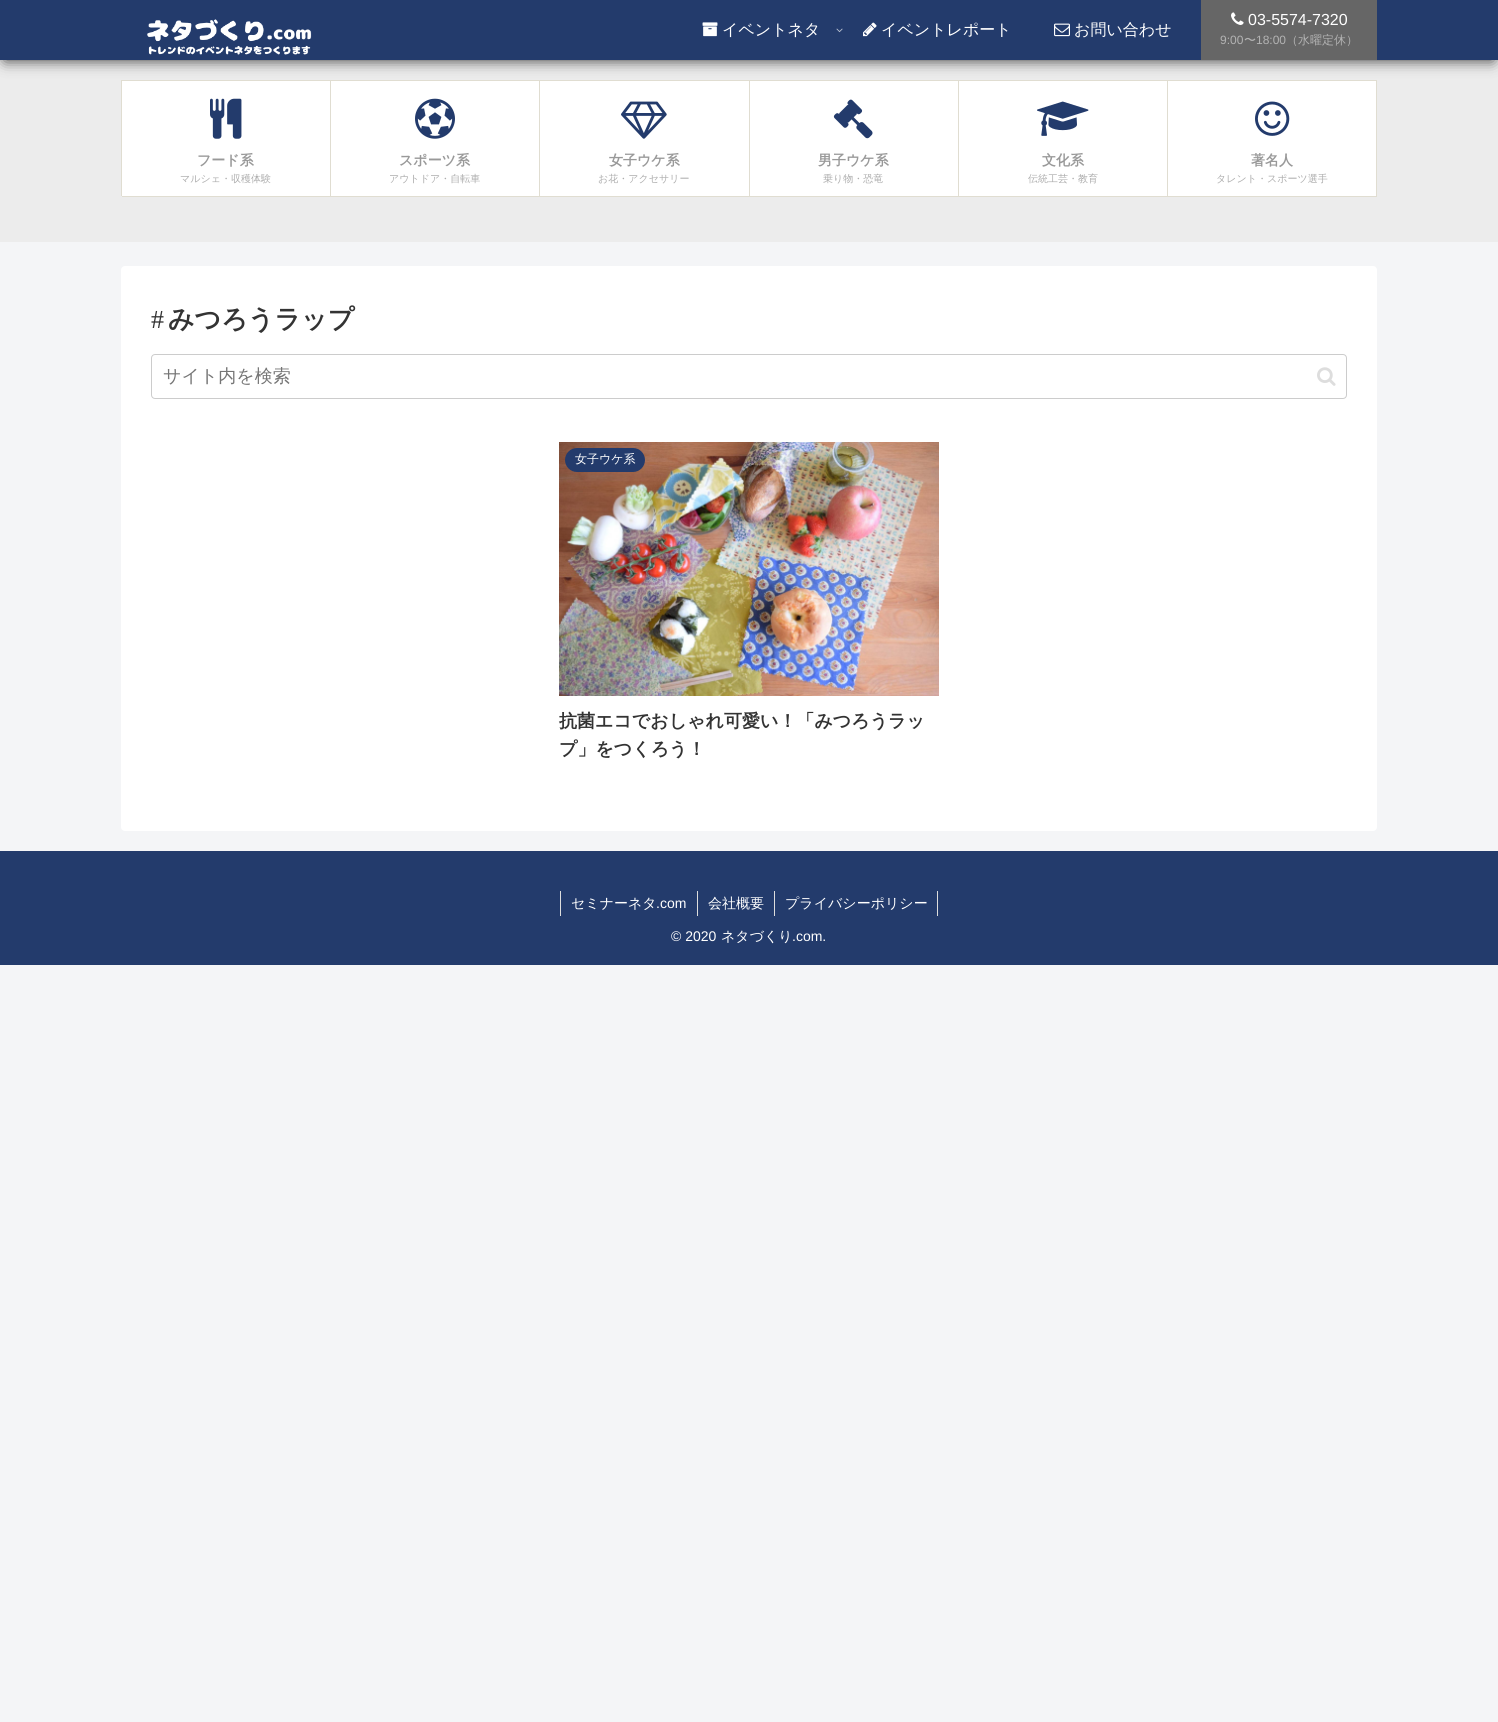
#include <cairo.h>
#include <math.h>
#include <stddef.h>


static void set_color(cairo_t *cr, unsigned color) {
    cairo_set_source_rgb(cr, (color >> 16) / 255.0, (color >> 8 & 255) / 255.0, (color & 255) / 255.0);
}

static void draw_text(cairo_t *cr, double x, double y, const char *s, const char *family, double size, int italic, int bold, unsigned color) {
    cairo_select_font_face(cr, family, italic ? CAIRO_FONT_SLANT_ITALIC : CAIRO_FONT_SLANT_NORMAL,
        bold ? CAIRO_FONT_WEIGHT_BOLD : CAIRO_FONT_WEIGHT_NORMAL);
    cairo_set_font_size(cr, size);
    set_color(cr, color);
    cairo_move_to(cr, x, y);
    cairo_show_text(cr, s);
}

static void fill_rect(cairo_t *cr, double x, double y, double w, double h, unsigned color) {
    set_color(cr, color);
    cairo_rectangle(cr, x, y, w, h);
    cairo_fill(cr);
}

static void rounded_rect(cairo_t *cr, double x, double y, double w, double h, double r) {
    cairo_new_sub_path(cr);
    cairo_arc(cr, x + w - r, y + h - r, r, 0, M_PI / 2);
    cairo_arc(cr, x + r, y + h - r, r, M_PI / 2, M_PI);
    cairo_arc(cr, x + r, y + r, r, M_PI, 1.5 * M_PI);
    cairo_arc(cr, x + w - r, y + r, r, 1.5 * M_PI, 2 * M_PI);
    cairo_close_path(cr);
}

static void draw_shadow(cairo_t *cr, double x, double y, double w, double h, double r, double blur, double alpha) {
    cairo_push_group_with_content(cr, CAIRO_CONTENT_ALPHA);
    cairo_set_operator(cr, CAIRO_OPERATOR_SOURCE);
    for (int i = 15; i >= -15 && fmin(w, h) + blur * i / 3 > 0; i -= 2) {
        double e = blur * i / 6;
        cairo_set_source_rgba(cr, 0, 0, 0, alpha * erfc((i - 1) / 8.5) / 2);
        rounded_rect(cr, x - e, y - e, w + 2 * e, h + 2 * e, fmax(0, fmin(r + e + blur * .6, fmin(w, h) / 2 + e)));
        cairo_fill(cr);
    }
    cairo_pattern_t *soft = cairo_pop_group(cr);
    cairo_mask(cr, soft);
    cairo_pattern_destroy(soft);
}

static void draw_image(cairo_t *cr, const char *path, double x, double y, double w, double h) {
    cairo_surface_t *image = cairo_image_surface_create_from_png(path);
    cairo_save(cr);
    cairo_set_source_surface(cr, image, x, y);
    cairo_rectangle(cr, x, y, w, h);
    cairo_fill(cr);
    cairo_restore(cr);
    cairo_surface_destroy(image);
}

int main(void) {
    cairo_surface_t *surface = cairo_image_surface_create(CAIRO_FORMAT_RGB24, 1498, 1722);
    cairo_t *cr = cairo_create(surface);
    cairo_font_options_t *options = cairo_font_options_create();
    cairo_font_options_set_hint_metrics(options, CAIRO_HINT_METRICS_OFF);
    cairo_font_options_set_hint_style(options, CAIRO_HINT_STYLE_NONE);
    cairo_set_font_options(cr, options);
    cairo_set_miter_limit(cr, 4);
    set_color(cr, 0xF4F5F7);
    cairo_paint(cr);
    fill_rect(cr, 0, 60, 1498, 182, 0xECECEC);
    set_color(cr, 0xE0DDD1);
    cairo_new_path(cr);
    cairo_move_to(cr, 122, 196);
    cairo_line_to(cr, 122, 197);
    cairo_line_to(cr, 331, 197);
    cairo_line_to(cr, 331, 81);
    cairo_line_to(cr, 330, 81);
    cairo_line_to(cr, 330, 196);
    cairo_close_path(cr);
    cairo_fill(cr);
    fill_rect(cr, 122, 81, 208, 115, 0xFFFFFF);
    cairo_save(cr);
    cairo_rectangle(cr, 121, 80, 209, 116);
    cairo_clip(cr);
    set_color(cr, 0xE0DDD1);
    cairo_set_fill_rule(cr, CAIRO_FILL_RULE_EVEN_ODD);
    cairo_new_path(cr);
    cairo_move_to(cr, 22, -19);
    cairo_line_to(cr, 429, -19);
    cairo_line_to(cr, 429, 295);
    cairo_line_to(cr, 22, 295);
    cairo_close_path(cr);
    cairo_move_to(cr, 122, 81);
    cairo_line_to(cr, 331, 81);
    cairo_line_to(cr, 331, 197);
    cairo_line_to(cr, 122, 197);
    cairo_close_path(cr);
    cairo_fill(cr);
    cairo_restore(cr);
    set_color(cr, 0xE0DDD1);
    cairo_new_path(cr);
    cairo_move_to(cr, 331, 196);
    cairo_line_to(cr, 331, 197);
    cairo_line_to(cr, 540, 197);
    cairo_line_to(cr, 540, 81);
    cairo_line_to(cr, 539, 81);
    cairo_line_to(cr, 539, 196);
    cairo_close_path(cr);
    cairo_fill(cr);
    fill_rect(cr, 331, 81, 208, 115, 0xFFFFFF);
    cairo_save(cr);
    cairo_rectangle(cr, 330, 80, 209, 116);
    cairo_clip(cr);
    set_color(cr, 0xE0DDD1);
    cairo_set_fill_rule(cr, CAIRO_FILL_RULE_EVEN_ODD);
    cairo_new_path(cr);
    cairo_move_to(cr, 231, -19);
    cairo_line_to(cr, 638, -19);
    cairo_line_to(cr, 638, 295);
    cairo_line_to(cr, 231, 295);
    cairo_close_path(cr);
    cairo_move_to(cr, 331, 81);
    cairo_line_to(cr, 540, 81);
    cairo_line_to(cr, 540, 197);
    cairo_line_to(cr, 331, 197);
    cairo_close_path(cr);
    cairo_fill(cr);
    cairo_restore(cr);
    set_color(cr, 0xE0DDD1);
    cairo_new_path(cr);
    cairo_move_to(cr, 540, 196);
    cairo_line_to(cr, 540, 197);
    cairo_line_to(cr, 750, 197);
    cairo_line_to(cr, 750, 81);
    cairo_line_to(cr, 749, 81);
    cairo_line_to(cr, 749, 196);
    cairo_close_path(cr);
    cairo_fill(cr);
    fill_rect(cr, 540, 81, 209, 115, 0xFFFFFF);
    cairo_save(cr);
    cairo_rectangle(cr, 539, 80, 210, 116);
    cairo_clip(cr);
    set_color(cr, 0xE0DDD1);
    cairo_set_fill_rule(cr, CAIRO_FILL_RULE_EVEN_ODD);
    cairo_new_path(cr);
    cairo_move_to(cr, 440, -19);
    cairo_line_to(cr, 848, -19);
    cairo_line_to(cr, 848, 295);
    cairo_line_to(cr, 440, 295);
    cairo_close_path(cr);
    cairo_move_to(cr, 540, 81);
    cairo_line_to(cr, 750, 81);
    cairo_line_to(cr, 750, 197);
    cairo_line_to(cr, 540, 197);
    cairo_close_path(cr);
    cairo_fill(cr);
    cairo_restore(cr);
    set_color(cr, 0xE0DDD1);
    cairo_new_path(cr);
    cairo_move_to(cr, 750, 196);
    cairo_line_to(cr, 750, 197);
    cairo_line_to(cr, 959, 197);
    cairo_line_to(cr, 959, 81);
    cairo_line_to(cr, 958, 81);
    cairo_line_to(cr, 958, 196);
    cairo_close_path(cr);
    cairo_fill(cr);
    fill_rect(cr, 750, 81, 208, 115, 0xFFFFFF);
    cairo_save(cr);
    cairo_rectangle(cr, 749, 80, 209, 116);
    cairo_clip(cr);
    set_color(cr, 0xE0DDD1);
    cairo_set_fill_rule(cr, CAIRO_FILL_RULE_EVEN_ODD);
    cairo_new_path(cr);
    cairo_move_to(cr, 650, -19);
    cairo_line_to(cr, 1057, -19);
    cairo_line_to(cr, 1057, 295);
    cairo_line_to(cr, 650, 295);
    cairo_close_path(cr);
    cairo_move_to(cr, 750, 81);
    cairo_line_to(cr, 959, 81);
    cairo_line_to(cr, 959, 197);
    cairo_line_to(cr, 750, 197);
    cairo_close_path(cr);
    cairo_fill(cr);
    cairo_restore(cr);
    set_color(cr, 0xE0DDD1);
    cairo_new_path(cr);
    cairo_move_to(cr, 959, 196);
    cairo_line_to(cr, 959, 197);
    cairo_line_to(cr, 1168, 197);
    cairo_line_to(cr, 1168, 81);
    cairo_line_to(cr, 1167, 81);
    cairo_line_to(cr, 1167, 196);
    cairo_close_path(cr);
    cairo_fill(cr);
    fill_rect(cr, 959, 81, 208, 115, 0xFFFFFF);
    cairo_save(cr);
    cairo_rectangle(cr, 958, 80, 209, 116);
    cairo_clip(cr);
    set_color(cr, 0xE0DDD1);
    cairo_set_fill_rule(cr, CAIRO_FILL_RULE_EVEN_ODD);
    cairo_new_path(cr);
    cairo_move_to(cr, 859, -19);
    cairo_line_to(cr, 1266, -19);
    cairo_line_to(cr, 1266, 295);
    cairo_line_to(cr, 859, 295);
    cairo_close_path(cr);
    cairo_move_to(cr, 959, 81);
    cairo_line_to(cr, 1168, 81);
    cairo_line_to(cr, 1168, 197);
    cairo_line_to(cr, 959, 197);
    cairo_close_path(cr);
    cairo_fill(cr);
    cairo_restore(cr);
    fill_rect(cr, 1376, 80, 1, 1, 0xE0DDD1);
    cairo_new_path(cr);
    cairo_move_to(cr, 1168, 196);
    cairo_line_to(cr, 1168, 197);
    cairo_line_to(cr, 1377, 197);
    cairo_line_to(cr, 1377, 81);
    cairo_line_to(cr, 1376, 81);
    cairo_line_to(cr, 1376, 196);
    cairo_close_path(cr);
    cairo_fill(cr);
    fill_rect(cr, 1168, 81, 208, 115, 0xFFFFFF);
    cairo_save(cr);
    cairo_rectangle(cr, 1167, 80, 209, 116);
    cairo_clip(cr);
    set_color(cr, 0xE0DDD1);
    cairo_set_fill_rule(cr, CAIRO_FILL_RULE_EVEN_ODD);
    cairo_new_path(cr);
    cairo_move_to(cr, 1068, -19);
    cairo_line_to(cr, 1475, -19);
    cairo_line_to(cr, 1475, 295);
    cairo_line_to(cr, 1068, 295);
    cairo_close_path(cr);
    cairo_move_to(cr, 1168, 81);
    cairo_line_to(cr, 1377, 81);
    cairo_line_to(cr, 1377, 197);
    cairo_line_to(cr, 1168, 197);
    cairo_close_path(cr);
    cairo_fill(cr);
    cairo_restore(cr);
    set_color(cr, 0x000000);
    draw_shadow(cr, 5, 10, 1488, 50, 0, 7.5, 0.8);
    fill_rect(cr, 0, 0, 1498, 60, 0x233B6C);
    draw_image(cr, "assets/img1.png", 147, 19, 165, 36);
    draw_image(cr, "assets/img2.png", 702, 22, 16, 15);
    draw_text(cr, 722, 35, "イベントネタ", "WenQuanYi Zen Hei Medium", 16, 0, 0, 0xFFFFFF);
    draw_image(cr, "assets/img3.png", 836, 28, 7, 5);
    draw_image(cr, "assets/img4.png", 863, 22, 14, 15);
    draw_text(cr, 881, 35, "イベントレポート", "WenQuanYi Zen Hei Medium", 16, 0, 0, 0xFFFFFF);
    draw_image(cr, "assets/img5.png", 1054, 23, 16, 14);
    draw_text(cr, 1074, 35, "お問い合わせ", "WenQuanYi Zen Hei Medium", 16, 0, 0, 0xFFFFFF);
    fill_rect(cr, 1201, 0, 176, 60, 0x666666);
    draw_image(cr, "assets/img6.png", 1231, 12, 13, 13);
    draw_text(cr, 1248, 25, "03-5574-7320", "Liberation Sans", 16, 0, 0, 0xFFFFFF);
    draw_text(cr, 1220, 44, "9:00", "Liberation Sans", 12, 0, 0, 0xB3B3B3);
    draw_text(cr, 1244, 44, "〜", "WenQuanYi Zen Hei Medium", 12, 0, 0, 0xB3B3B3);
    draw_text(cr, 1256, 44, "18:00", "Liberation Sans", 12, 0, 0, 0xB3B3B3);
    draw_text(cr, 1286, 44, "（水曜定休）", "WenQuanYi Zen Hei Medium", 12, 0, 0, 0xB3B3B3);
    draw_image(cr, "assets/img7.png", 210, 98, 32, 41);
    draw_text(cr, 197, 165, "フード系", "WenQuanYi Zen Hei", 14, 0, 1, 0x999999);
    draw_text(cr, 180, 182, "マルシェ・収穫体験", "WenQuanYi Zen Hei Medium", 10, 0, 0, 0xADADAD);
    draw_image(cr, "assets/img8.png", 415, 98, 40, 41);
    draw_text(cr, 399, 165, "スポーツ系", "WenQuanYi Zen Hei", 14, 0, 1, 0x999999);
    draw_text(cr, 389, 182, "アウトドア・自転車", "WenQuanYi Zen Hei Medium", 10, 0, 0, 0xADADAD);
    draw_image(cr, "assets/img9.png", 621, 101, 46, 38);
    draw_text(cr, 609, 165, "女子ウケ系", "WenQuanYi Zen Hei", 14, 0, 1, 0x999999);
    draw_text(cr, 598, 182, "お花・アクセサリー", "WenQuanYi Zen Hei Medium", 10, 0, 0, 0xADADAD);
    draw_image(cr, "assets/img10.png", 833, 99, 40, 40);
    draw_text(cr, 818, 165, "男子ウケ系", "WenQuanYi Zen Hei", 14, 0, 1, 0x999999);
    draw_text(cr, 823, 182, "乗り物・恐竜", "WenQuanYi Zen Hei Medium", 10, 0, 0, 0xADADAD);
    draw_image(cr, "assets/img11.png", 1037, 101, 52, 35);
    draw_text(cr, 1042, 165, "文化系", "WenQuanYi Zen Hei", 14, 0, 1, 0x999999);
    draw_text(cr, 1028, 182, "伝統工芸・教育", "WenQuanYi Zen Hei Medium", 10, 0, 0, 0xADADAD);
    draw_image(cr, "assets/img12.png", 1255, 101, 35, 35);
    draw_text(cr, 1251, 165, "著名人", "WenQuanYi Zen Hei", 14, 0, 1, 0x999999);
    draw_text(cr, 1216, 182, "タレント・スポーツ選手", "WenQuanYi Zen Hei Medium", 10, 0, 0, 0xADADAD);
    set_color(cr, 0xFFFFFF);
    rounded_rect(cr, 121, 266, 1256, 565, 4);
    cairo_fill(cr);
    draw_text(cr, 151, 328, "#", "Liberation Serif", 26, 0, 0, 0x333333);
    draw_text(cr, 168, 328, "みつろうラップ", "WenQuanYi Zen Hei", 26, 0, 1, 0x333333);
    rounded_rect(cr, 151.5, 354.5, 1195, 44, 3.5);
    set_color(cr, 0xCCCCCC);
    cairo_set_line_width(cr, 1);
    cairo_stroke(cr);
    draw_text(cr, 163, 382, "サイト内を検索", "WenQuanYi Zen Hei Medium", 18, 0, 0, 0x757575);
    draw_image(cr, "assets/img13.png", 1317, 367, 19, 19);
    draw_image(cr, "assets/img14.png", 559, 442, 380, 254);
    set_color(cr, 0x233B6C);
    rounded_rect(cr, 565, 448, 80, 24, 12);
    cairo_fill(cr);
    draw_text(cr, 575, 463, "女子ウケ系", "WenQuanYi Zen Hei Medium", 12, 0, 0, 0xFFFFFF);
    draw_text(cr, 559, 727, "抗菌エコでおしゃれ可愛い！「みつろうラッ", "WenQuanYi Zen Hei", 18, 0, 1, 0x333333);
    draw_text(cr, 559, 755, "プ」をつくろう！", "WenQuanYi Zen Hei", 18, 0, 1, 0x333333);
    fill_rect(cr, 0, 851, 1498, 114, 0x233B6C);
    fill_rect(cr, 560, 891, 1, 25, 0xDDDDDD);
    draw_text(cr, 571, 908, "セミナーネタ", "WenQuanYi Zen Hei Medium", 14, 0, 0, 0xFFFFFF);
    draw_text(cr, 656, 908, ".com", "Liberation Sans", 14, 0, 0, 0xFFFFFF);
    fill_rect(cr, 697, 891, 1, 25, 0xDDDDDD);
    draw_text(cr, 708, 908, "会社概要", "WenQuanYi Zen Hei Medium", 14, 0, 0, 0xFFFFFF);
    fill_rect(cr, 937, 891, 1, 25, 0xDDDDDD);
    fill_rect(cr, 774, 891, 1, 25, 0xDDDDDD);
    draw_text(cr, 785, 908, "プライバシーポリシー", "WenQuanYi Zen Hei Medium", 14, 0, 0, 0xFFFFFF);
    draw_text(cr, 671, 941, "© 2020", "Liberation Sans", 14, 0, 0, 0xFFFFFF);
    draw_text(cr, 721, 941, "ネタづくり", "WenQuanYi Zen Hei Medium", 14, 0, 0, 0xFFFFFF);
    draw_text(cr, 792, 941, ".com.", "Liberation Sans", 14, 0, 0, 0xFFFFFF);
    cairo_surface_write_to_png(surface, "output.png");
    cairo_font_options_destroy(options);
    cairo_destroy(cr);
    cairo_surface_destroy(surface);
    return 0;
}
